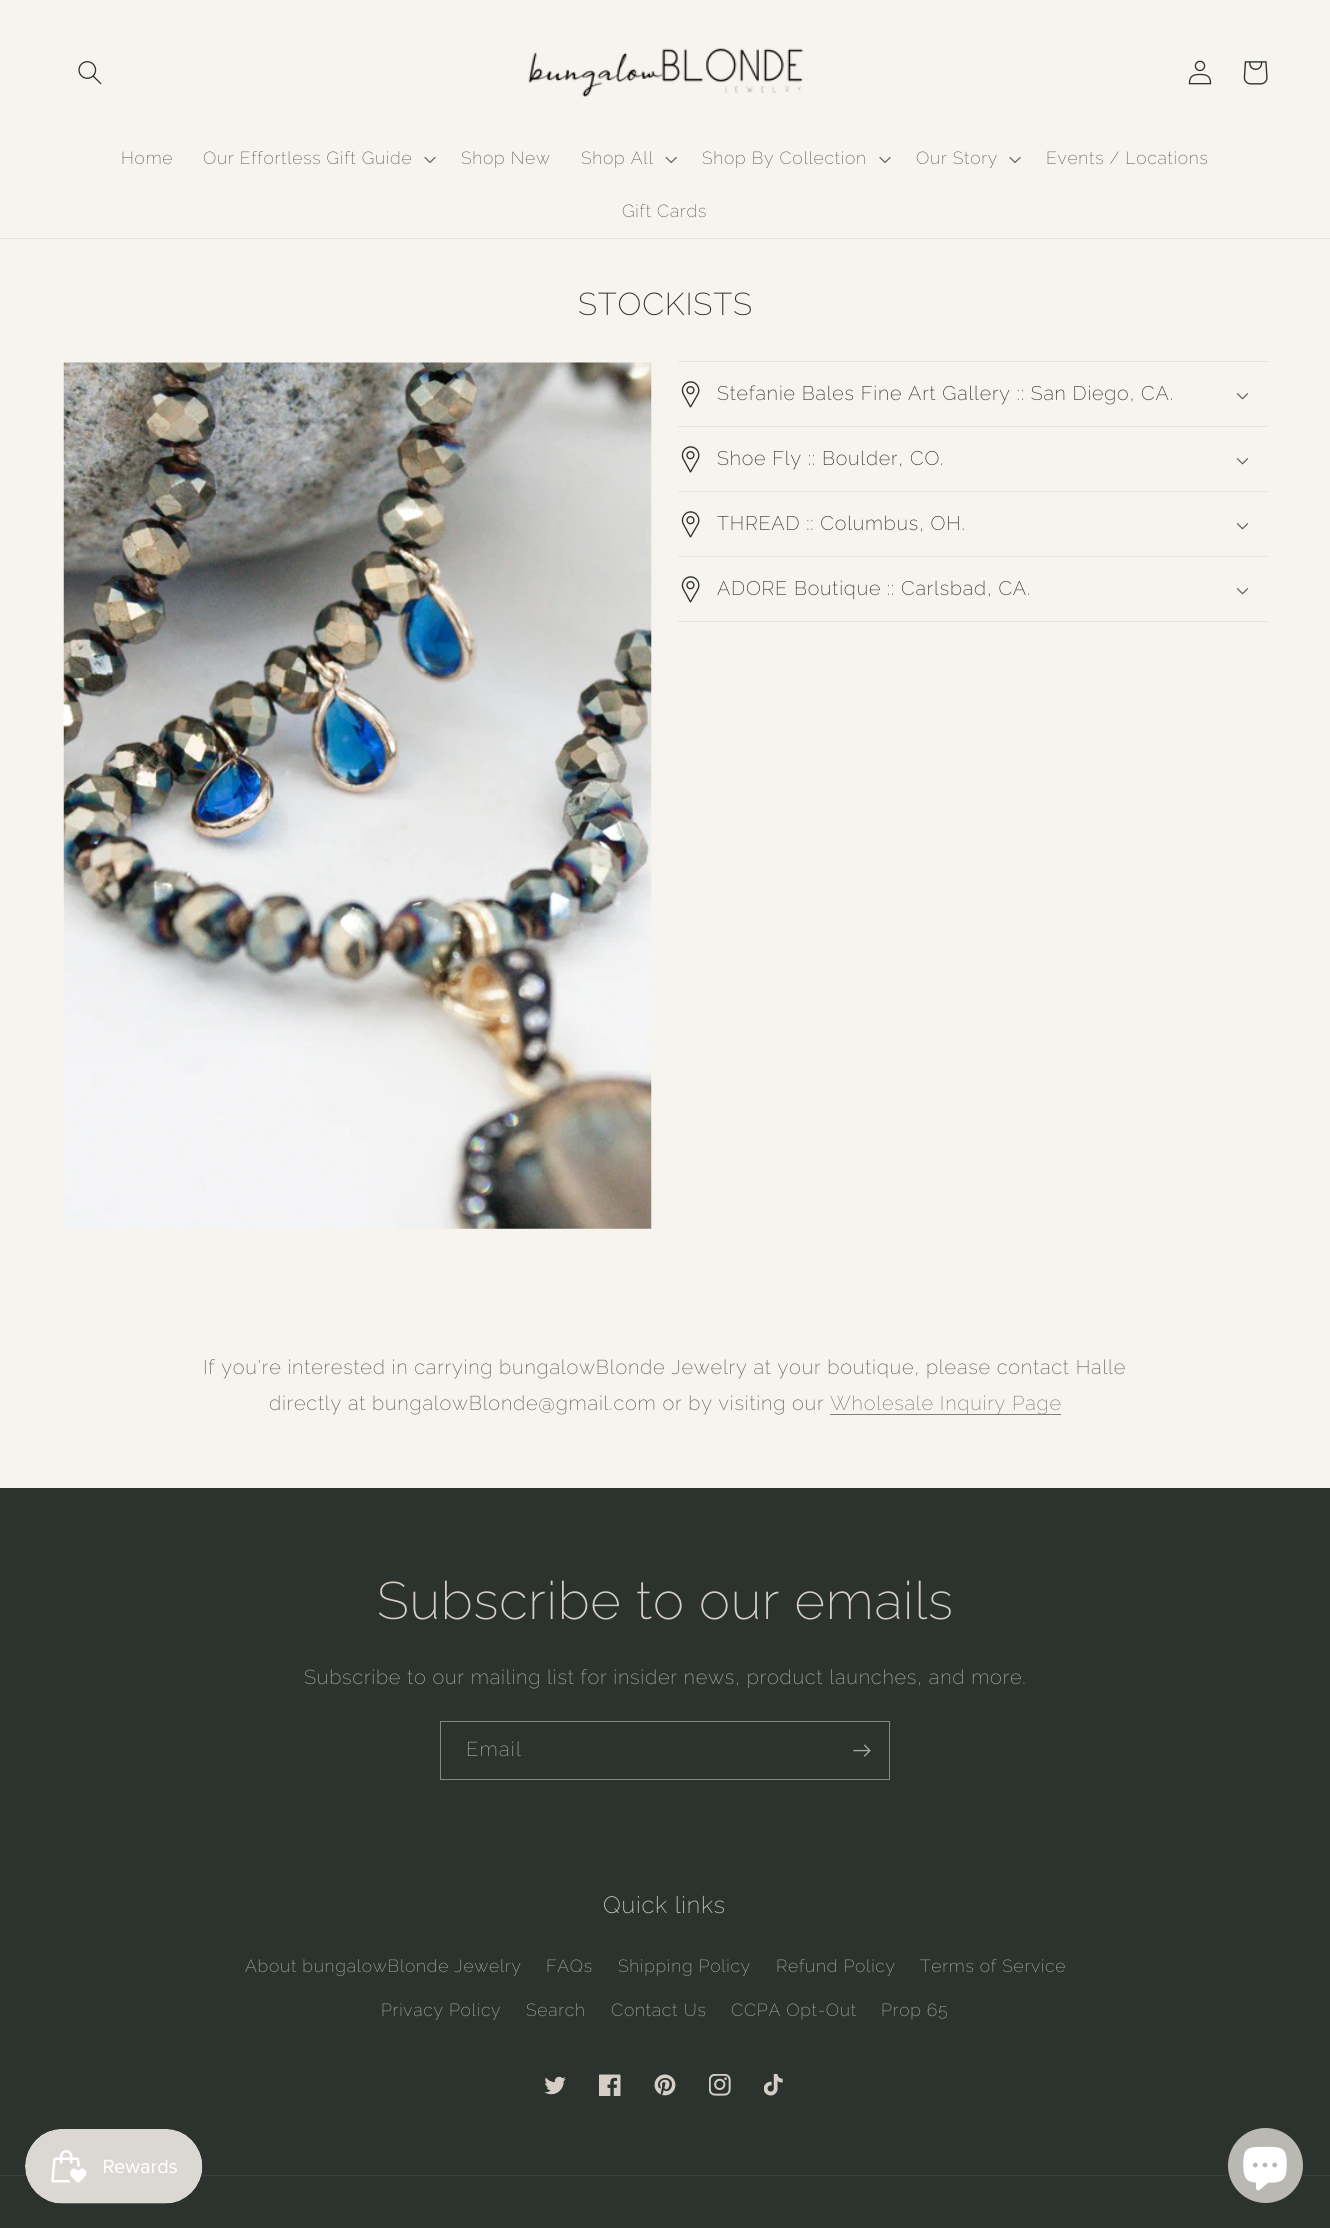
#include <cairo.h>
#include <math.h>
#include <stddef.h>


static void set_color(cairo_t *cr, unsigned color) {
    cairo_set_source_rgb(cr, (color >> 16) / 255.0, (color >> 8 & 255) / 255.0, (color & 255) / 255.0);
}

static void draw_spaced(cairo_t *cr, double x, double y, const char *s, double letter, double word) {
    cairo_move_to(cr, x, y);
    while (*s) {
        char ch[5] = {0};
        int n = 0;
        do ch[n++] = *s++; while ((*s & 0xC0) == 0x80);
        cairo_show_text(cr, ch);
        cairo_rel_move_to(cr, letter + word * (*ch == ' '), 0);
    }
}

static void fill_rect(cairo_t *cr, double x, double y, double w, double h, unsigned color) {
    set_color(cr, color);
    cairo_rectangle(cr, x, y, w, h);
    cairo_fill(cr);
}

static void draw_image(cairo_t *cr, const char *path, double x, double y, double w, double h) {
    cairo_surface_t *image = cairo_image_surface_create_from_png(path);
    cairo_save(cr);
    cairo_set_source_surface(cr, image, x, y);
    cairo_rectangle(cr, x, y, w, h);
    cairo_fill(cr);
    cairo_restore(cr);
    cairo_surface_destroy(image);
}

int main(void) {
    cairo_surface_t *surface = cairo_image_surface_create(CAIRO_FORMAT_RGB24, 1330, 2228);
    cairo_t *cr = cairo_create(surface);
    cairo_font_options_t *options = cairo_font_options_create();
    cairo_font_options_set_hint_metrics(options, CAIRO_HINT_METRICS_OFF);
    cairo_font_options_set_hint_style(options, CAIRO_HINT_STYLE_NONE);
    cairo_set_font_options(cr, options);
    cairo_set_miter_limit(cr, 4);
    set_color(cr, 0xF7F4F0);
    cairo_paint(cr);
    fill_rect(cr, 0, 238, 1330, 1, 0xE7E5E1);
    draw_image(cr, "assets/img1.png", 78, 61, 24, 24);
    draw_image(cr, "assets/img2.png", 528, 48, 275, 49);
    draw_image(cr, "assets/img3.png", 1188, 60, 24, 25);
    draw_image(cr, "assets/img4.png", 1243, 61, 25, 24);
    cairo_select_font_face(cr, "Raleway ExtraLight", CAIRO_FONT_SLANT_NORMAL, CAIRO_FONT_WEIGHT_NORMAL);
    cairo_set_font_size(cr, 17.5);
    set_color(cr, 0x5F635F);
    draw_spaced(cr, 121, 164, "Home", 0.75, 0);
    draw_spaced(cr, 203, 164, "Our Effortless Gift Guide", 0.75, 0);
    draw_image(cr, "assets/img5.png", 424, 157, 12, 6);
    draw_spaced(cr, 461, 164, "Shop New", 0.75, 0);
    draw_spaced(cr, 581, 164, "Shop All", 0.75, 0);
    draw_image(cr, "assets/img6.png", 665, 156, 12, 8);
    draw_spaced(cr, 702, 164, "Shop By Collection", 0.75, 0);
    draw_image(cr, "assets/img5.png", 879, 157, 12, 6);
    draw_spaced(cr, 916, 164, "Our Story", 0.75, 0);
    draw_image(cr, "assets/img5.png", 1009, 157, 12, 6);
    draw_spaced(cr, 1046, 164, "Events / Locations", 0.75, 0);
    draw_spaced(cr, 622, 217, "Gift Cards", 0.75, 0);
    cairo_set_font_size(cr, 31.5);
    set_color(cr, 0x2C332F);
    draw_spaced(cr, 578, 315, "STOCKISTS", 0.8, 0);
    draw_image(cr, "assets/img7.png", 63, 362, 589, 867);
    fill_rect(cr, 678, 361, 590, 1, 0xE7E5E1);
    fill_rect(cr, 678, 426, 590, 1, 0xE7E5E1);
    draw_image(cr, "assets/img8.png", 681, 381, 19, 27);
    cairo_set_font_size(cr, 19.7);
    set_color(cr, 0x2C332F);
    draw_spaced(cr, 717, 400, "Stefanie Bales Fine Art Gallery :: San Diego, CA.", 0.8, 0);
    draw_image(cr, "assets/img9.png", 1236, 393, 13, 7);
    fill_rect(cr, 678, 491, 590, 1, 0xE7E5E1);
    draw_image(cr, "assets/img8.png", 681, 446, 19, 27);
    set_color(cr, 0x2C332F);
    draw_spaced(cr, 717, 465, "Shoe Fly :: Boulder, CO.", 0.8, 0);
    draw_image(cr, "assets/img9.png", 1236, 458, 13, 7);
    fill_rect(cr, 678, 556, 590, 1, 0xE7E5E1);
    draw_image(cr, "assets/img8.png", 681, 511, 19, 27);
    set_color(cr, 0x2C332F);
    draw_spaced(cr, 717, 530, "THREAD :: Columbus, OH.", 0.8, 0);
    draw_image(cr, "assets/img9.png", 1236, 523, 13, 7);
    fill_rect(cr, 678, 621, 590, 1, 0xE7E5E1);
    draw_image(cr, "assets/img8.png", 681, 576, 19, 27);
    set_color(cr, 0x2C332F);
    draw_spaced(cr, 717, 595, "ADORE Boutique :: Carlsbad, CA.", 0.8, 0);
    draw_image(cr, "assets/img9.png", 1236, 588, 13, 7);
    cairo_set_font_size(cr, 20);
    set_color(cr, 0x5F635F);
    draw_spaced(cr, 203, 1374, "If you're interested in carrying bungalowBlonde Jewelry at your boutique, please contact Halle", 0.75, 0);
    draw_spaced(cr, 269, 1410, "directly at bungalowBlonde@gmail.com or by visiting our", 0.75, 0);
    fill_rect(cr, 830, 1414, 231, 1, 0x7F7F7E);
    draw_spaced(cr, 830, 1410, "Wholesale Inquiry Page", 0.75, 0);
    fill_rect(cr, 0, 1488, 1330, 740, 0x2C332F);
    cairo_set_font_size(cr, 52.5);
    set_color(cr, 0xD4CEC7);
    draw_spaced(cr, 377, 1619, "Subscribe to our emails", 0.8, 0);
    cairo_set_font_size(cr, 20);
    set_color(cr, 0xAAA7A1);
    draw_spaced(cr, 304, 1684, "Subscribe to our mailing list for insider news, product launches, and more.", 0.75, 0);
    cairo_rectangle(cr, 440.5, 1721.5, 449, 58);
    set_color(cr, 0x888883);
    cairo_set_line_width(cr, 1);
    cairo_stroke(cr);
    set_color(cr, 0xAAA7A1);
    draw_spaced(cr, 466, 1756, "Email", 1.25, 0);
    draw_image(cr, "assets/img10.png", 853, 1744, 18, 13);
    cairo_set_font_size(cr, 23.5);
    set_color(cr, 0xD4CEC7);
    draw_spaced(cr, 603, 1913, "Quick links", 0.8, 0);
    cairo_set_font_size(cr, 17.5);
    set_color(cr, 0xAAA7A1);
    draw_spaced(cr, 245, 1972, "About bungalowBlonde Jewelry", 0.75, 0);
    draw_spaced(cr, 546, 1972, "FAQs", 0.75, 0);
    draw_spaced(cr, 618, 1972, "Shipping Policy", 0.75, 0);
    draw_spaced(cr, 776, 1972, "Refund Policy", 0.75, 0);
    draw_spaced(cr, 920, 1972, "Terms of Service", 0.75, 0);
    draw_spaced(cr, 381, 2016, "Privacy Policy", 0.75, 0);
    draw_spaced(cr, 526, 2016, "Search", 0.75, 0);
    draw_spaced(cr, 611, 2016, "Contact Us", 0.75, 0);
    draw_spaced(cr, 731, 2016, "CCPA Opt-Out", 0.75, 0);
    draw_spaced(cr, 881, 2016, "Prop 65", 0.75, 0);
    draw_image(cr, "assets/img11.png", 544, 2076, 22, 19);
    draw_image(cr, "assets/img12.png", 599, 2074, 22, 22);
    draw_image(cr, "assets/img13.png", 654, 2074, 22, 22);
    draw_image(cr, "assets/img14.png", 709, 2074, 22, 22);
    draw_image(cr, "assets/img15.png", 764, 2074, 19, 22);
    fill_rect(cr, 0, 2175, 1330, 1, 0x393F3B);
    draw_image(cr, "assets/img16.png", 25, 2129, 178, 75);
    set_color(cr, 0xBAB8B2);
    cairo_arc(cr, 1265.5, 2165.5, 37.5, 0, 2 * M_PI);
    cairo_fill(cr);
    draw_image(cr, "assets/img17.png", 1243, 2146, 44, 45);
    cairo_surface_write_to_png(surface, "output.png");
    cairo_font_options_destroy(options);
    cairo_destroy(cr);
    cairo_surface_destroy(surface);
    return 0;
}
